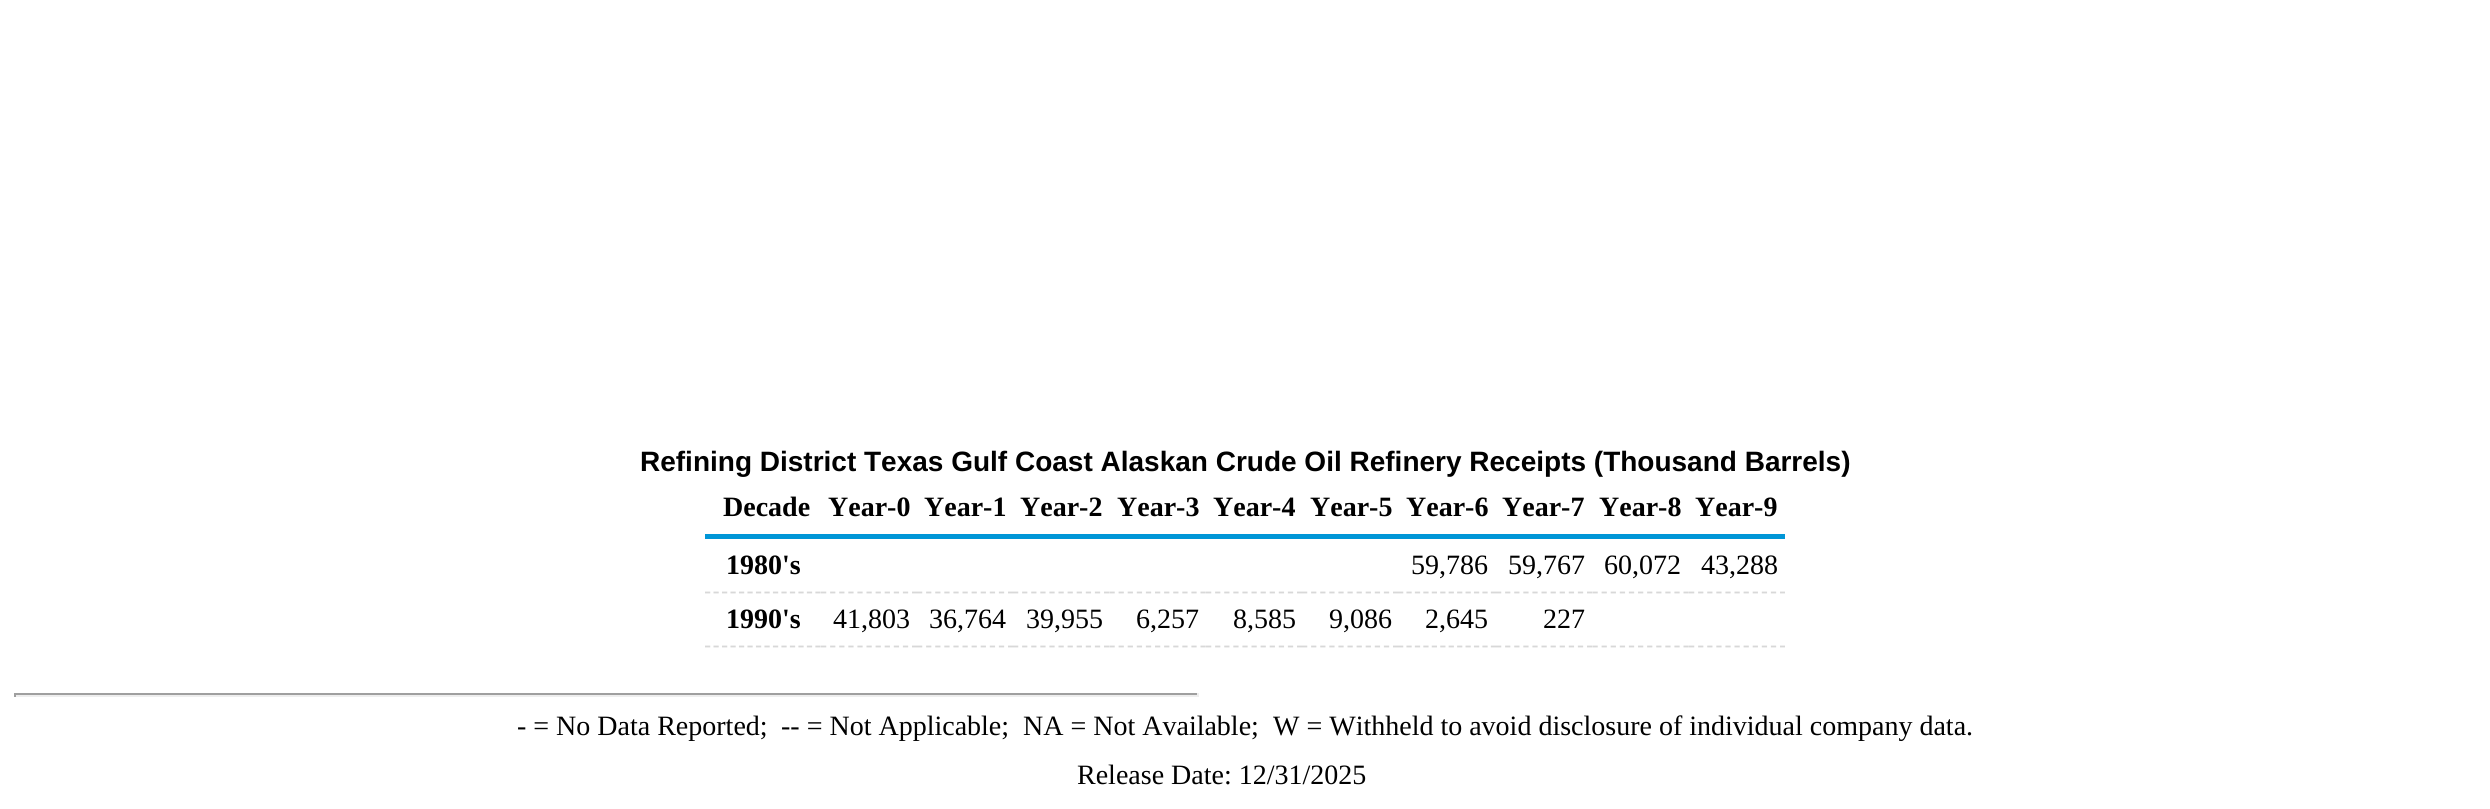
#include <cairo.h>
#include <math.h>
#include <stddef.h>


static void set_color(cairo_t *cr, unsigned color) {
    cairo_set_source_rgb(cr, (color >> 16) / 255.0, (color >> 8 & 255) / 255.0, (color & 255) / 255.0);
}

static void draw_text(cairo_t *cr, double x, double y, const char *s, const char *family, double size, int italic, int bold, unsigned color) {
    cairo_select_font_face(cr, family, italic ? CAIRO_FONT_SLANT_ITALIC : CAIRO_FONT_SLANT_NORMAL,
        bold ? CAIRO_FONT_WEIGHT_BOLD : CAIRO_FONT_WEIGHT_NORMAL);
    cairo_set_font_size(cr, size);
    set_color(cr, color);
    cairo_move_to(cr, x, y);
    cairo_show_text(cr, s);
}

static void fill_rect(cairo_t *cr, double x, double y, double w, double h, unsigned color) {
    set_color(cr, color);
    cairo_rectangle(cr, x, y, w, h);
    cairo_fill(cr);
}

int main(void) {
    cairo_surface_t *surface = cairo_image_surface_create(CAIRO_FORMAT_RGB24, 2490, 809);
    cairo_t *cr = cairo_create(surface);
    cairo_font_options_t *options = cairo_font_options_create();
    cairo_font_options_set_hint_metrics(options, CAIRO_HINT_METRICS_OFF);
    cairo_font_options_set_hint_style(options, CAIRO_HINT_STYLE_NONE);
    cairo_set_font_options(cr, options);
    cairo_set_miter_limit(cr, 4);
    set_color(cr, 0xFFFFFF);
    cairo_paint(cr);
    draw_text(cr, 640, 471, "Refining District Texas Gulf Coast Alaskan Crude Oil Refinery Receipts (Thousand Barrels)", "Liberation Sans", 28, 0, 1, 0x000000);
    fill_rect(cr, 705, 534, 1080, 5, 0x0096D7);
    draw_text(cr, 723, 516, "Decade", "Liberation Serif", 28, 0, 1, 0x000000);
    draw_text(cr, 828, 516, "Year-0", "Liberation Serif", 28, 0, 1, 0x000000);
    draw_text(cr, 924, 516, "Year-1", "Liberation Serif", 28, 0, 1, 0x000000);
    draw_text(cr, 1020, 516, "Year-2", "Liberation Serif", 28, 0, 1, 0x000000);
    draw_text(cr, 1117, 516, "Year-3", "Liberation Serif", 28, 0, 1, 0x000000);
    draw_text(cr, 1213, 516, "Year-4", "Liberation Serif", 28, 0, 1, 0x000000);
    draw_text(cr, 1310, 516, "Year-5", "Liberation Serif", 28, 0, 1, 0x000000);
    draw_text(cr, 1406, 516, "Year-6", "Liberation Serif", 28, 0, 1, 0x000000);
    draw_text(cr, 1502, 516, "Year-7", "Liberation Serif", 28, 0, 1, 0x000000);
    draw_text(cr, 1599, 516, "Year-8", "Liberation Serif", 28, 0, 1, 0x000000);
    draw_text(cr, 1695, 516, "Year-9", "Liberation Serif", 28, 0, 1, 0x000000);
    cairo_new_path(cr);
    cairo_move_to(cr, 705, 592.5);
    cairo_line_to(cr, 821, 592.5);
    set_color(cr, 0xD8D8D8);
    cairo_set_line_width(cr, 1.8);
    cairo_set_dash(cr, (double[]){5.25, 3.24}, 2, 0);
    cairo_stroke(cr);
    draw_text(cr, 726, 574, "1980's", "Liberation Serif", 28, 0, 1, 0x000000);
    cairo_new_path(cr);
    cairo_move_to(cr, 1398, 592.5);
    cairo_line_to(cr, 1496, 592.5);
    set_color(cr, 0xD8D8D8);
    cairo_set_dash(cr, (double[]){5.25, 3.19}, 2, 0);
    cairo_stroke(cr);
    draw_text(cr, 1411, 574, "59,786", "Liberation Serif", 28, 0, 0, 0x000000);
    cairo_new_path(cr);
    cairo_move_to(cr, 1496, 592.5);
    cairo_line_to(cr, 1592.5, 592.5);
    set_color(cr, 0xD8D8D8);
    cairo_set_dash(cr, (double[]){5.25, 3.85}, 2, 0);
    cairo_stroke(cr);
    draw_text(cr, 1508, 574, "59,767", "Liberation Serif", 28, 0, 0, 0x000000);
    cairo_new_path(cr);
    cairo_move_to(cr, 1592.5, 592.5);
    cairo_line_to(cr, 1689, 592.5);
    set_color(cr, 0xD8D8D8);
    cairo_stroke(cr);
    draw_text(cr, 1604, 574, "60,072", "Liberation Serif", 28, 0, 0, 0x000000);
    cairo_new_path(cr);
    cairo_move_to(cr, 1689, 592.5);
    cairo_line_to(cr, 1785, 592.5);
    set_color(cr, 0xD8D8D8);
    cairo_stroke(cr);
    draw_text(cr, 1701, 574, "43,288", "Liberation Serif", 28, 0, 0, 0x000000);
    cairo_new_path(cr);
    cairo_move_to(cr, 821, 592.5);
    cairo_line_to(cr, 917, 592.5);
    set_color(cr, 0xD8D8D8);
    cairo_stroke(cr);
    cairo_new_path(cr);
    cairo_move_to(cr, 917, 592.5);
    cairo_line_to(cr, 1013, 592.5);
    cairo_stroke(cr);
    cairo_new_path(cr);
    cairo_move_to(cr, 1013, 592.5);
    cairo_line_to(cr, 1109.5, 592.5);
    cairo_stroke(cr);
    cairo_new_path(cr);
    cairo_move_to(cr, 1109.5, 592.5);
    cairo_line_to(cr, 1206, 592.5);
    cairo_stroke(cr);
    cairo_new_path(cr);
    cairo_move_to(cr, 1206, 592.5);
    cairo_line_to(cr, 1302, 592.5);
    cairo_stroke(cr);
    cairo_new_path(cr);
    cairo_move_to(cr, 1302, 592.5);
    cairo_line_to(cr, 1398, 592.5);
    cairo_stroke(cr);
    cairo_new_path(cr);
    cairo_move_to(cr, 705, 646.5);
    cairo_line_to(cr, 821, 646.5);
    cairo_set_dash(cr, (double[]){5.25, 3.24}, 2, 0);
    cairo_stroke(cr);
    draw_text(cr, 726, 628, "1990's", "Liberation Serif", 28, 0, 1, 0x000000);
    cairo_new_path(cr);
    cairo_move_to(cr, 821, 646.5);
    cairo_line_to(cr, 917, 646.5);
    set_color(cr, 0xD8D8D8);
    cairo_set_dash(cr, (double[]){5.25, 3.85}, 2, 0);
    cairo_stroke(cr);
    draw_text(cr, 833, 628, "41,803", "Liberation Serif", 28, 0, 0, 0x000000);
    cairo_new_path(cr);
    cairo_move_to(cr, 917, 646.5);
    cairo_line_to(cr, 1013, 646.5);
    set_color(cr, 0xD8D8D8);
    cairo_stroke(cr);
    draw_text(cr, 929, 628, "36,764", "Liberation Serif", 28, 0, 0, 0x000000);
    cairo_new_path(cr);
    cairo_move_to(cr, 1013, 646.5);
    cairo_line_to(cr, 1109.5, 646.5);
    set_color(cr, 0xD8D8D8);
    cairo_stroke(cr);
    draw_text(cr, 1026, 628, "39,955", "Liberation Serif", 28, 0, 0, 0x000000);
    cairo_new_path(cr);
    cairo_move_to(cr, 1109.5, 646.5);
    cairo_line_to(cr, 1206, 646.5);
    set_color(cr, 0xD8D8D8);
    cairo_stroke(cr);
    draw_text(cr, 1136, 628, "6,257", "Liberation Serif", 28, 0, 0, 0x000000);
    cairo_new_path(cr);
    cairo_move_to(cr, 1206, 646.5);
    cairo_line_to(cr, 1302, 646.5);
    set_color(cr, 0xD8D8D8);
    cairo_stroke(cr);
    draw_text(cr, 1233, 628, "8,585", "Liberation Serif", 28, 0, 0, 0x000000);
    cairo_new_path(cr);
    cairo_move_to(cr, 1302, 646.5);
    cairo_line_to(cr, 1398, 646.5);
    set_color(cr, 0xD8D8D8);
    cairo_stroke(cr);
    draw_text(cr, 1329, 628, "9,086", "Liberation Serif", 28, 0, 0, 0x000000);
    cairo_new_path(cr);
    cairo_move_to(cr, 1398, 646.5);
    cairo_line_to(cr, 1496, 646.5);
    set_color(cr, 0xD8D8D8);
    cairo_set_dash(cr, (double[]){5.25, 3.19}, 2, 0);
    cairo_stroke(cr);
    draw_text(cr, 1425, 628, "2,645", "Liberation Serif", 28, 0, 0, 0x000000);
    cairo_new_path(cr);
    cairo_move_to(cr, 1496, 646.5);
    cairo_line_to(cr, 1592.5, 646.5);
    set_color(cr, 0xD8D8D8);
    cairo_set_dash(cr, (double[]){5.25, 3.85}, 2, 0);
    cairo_stroke(cr);
    draw_text(cr, 1543, 628, "227", "Liberation Serif", 28, 0, 0, 0x000000);
    cairo_new_path(cr);
    cairo_move_to(cr, 1592.5, 646.5);
    cairo_line_to(cr, 1689, 646.5);
    set_color(cr, 0xD8D8D8);
    cairo_stroke(cr);
    cairo_new_path(cr);
    cairo_move_to(cr, 1689, 646.5);
    cairo_line_to(cr, 1785, 646.5);
    cairo_stroke(cr);
    fill_rect(cr, 14, 693, 1185, 2, 0x9F9F9F);
    fill_rect(cr, 1197, 693, 2, 4, 0xEEEEEE);
    fill_rect(cr, 14, 695, 1185, 2, 0xEEEEEE);
    fill_rect(cr, 14, 693, 2, 4, 0x9F9F9F);
    draw_text(cr, 517, 735, "- = No Data Reported;", "Liberation Serif", 28, 0, 0, 0x000000);
    draw_text(cr, 781, 735, "-- = Not Applicable;", "Liberation Serif", 28, 0, 0, 0x000000);
    draw_text(cr, 1023, 735, "NA = Not Available;", "Liberation Serif", 28, 0, 0, 0x000000);
    draw_text(cr, 1273, 735, "W = Withheld to avoid disclosure of individual company data.", "Liberation Serif", 28, 0, 0, 0x000000);
    draw_text(cr, 1077, 784, "Release Date: 12/31/2025", "Liberation Serif", 28, 0, 0, 0x000000);
    cairo_surface_write_to_png(surface, "output.png");
    cairo_font_options_destroy(options);
    cairo_destroy(cr);
    cairo_surface_destroy(surface);
    return 0;
}
